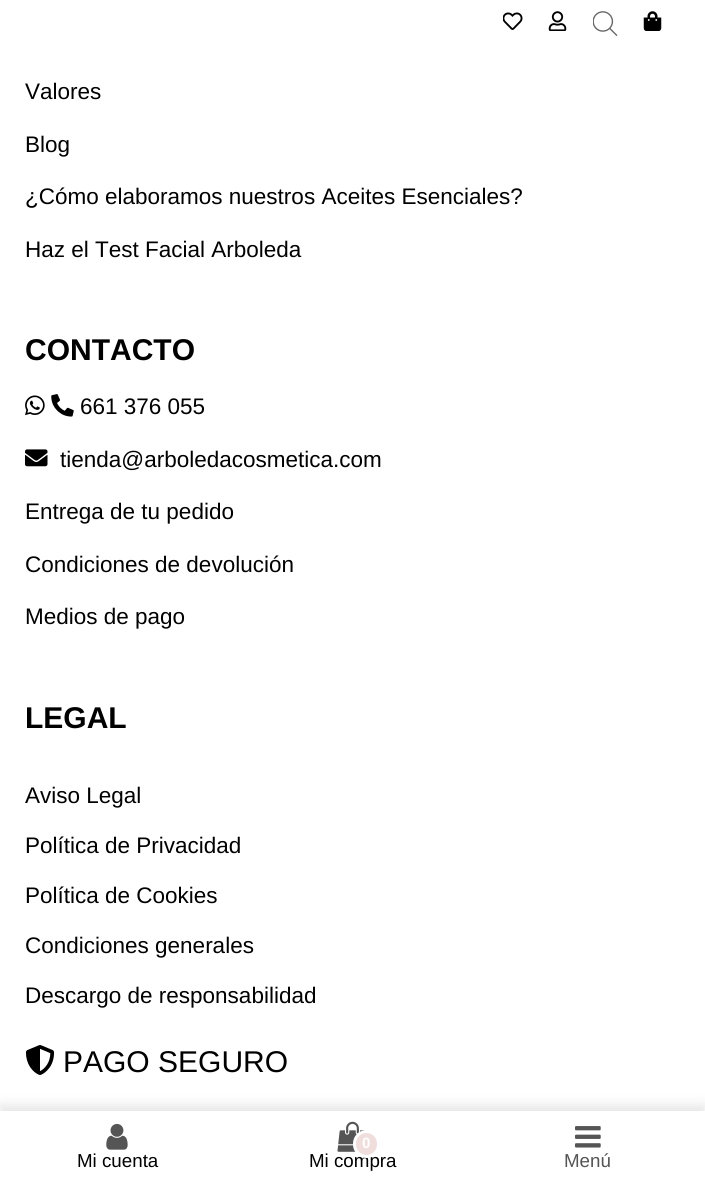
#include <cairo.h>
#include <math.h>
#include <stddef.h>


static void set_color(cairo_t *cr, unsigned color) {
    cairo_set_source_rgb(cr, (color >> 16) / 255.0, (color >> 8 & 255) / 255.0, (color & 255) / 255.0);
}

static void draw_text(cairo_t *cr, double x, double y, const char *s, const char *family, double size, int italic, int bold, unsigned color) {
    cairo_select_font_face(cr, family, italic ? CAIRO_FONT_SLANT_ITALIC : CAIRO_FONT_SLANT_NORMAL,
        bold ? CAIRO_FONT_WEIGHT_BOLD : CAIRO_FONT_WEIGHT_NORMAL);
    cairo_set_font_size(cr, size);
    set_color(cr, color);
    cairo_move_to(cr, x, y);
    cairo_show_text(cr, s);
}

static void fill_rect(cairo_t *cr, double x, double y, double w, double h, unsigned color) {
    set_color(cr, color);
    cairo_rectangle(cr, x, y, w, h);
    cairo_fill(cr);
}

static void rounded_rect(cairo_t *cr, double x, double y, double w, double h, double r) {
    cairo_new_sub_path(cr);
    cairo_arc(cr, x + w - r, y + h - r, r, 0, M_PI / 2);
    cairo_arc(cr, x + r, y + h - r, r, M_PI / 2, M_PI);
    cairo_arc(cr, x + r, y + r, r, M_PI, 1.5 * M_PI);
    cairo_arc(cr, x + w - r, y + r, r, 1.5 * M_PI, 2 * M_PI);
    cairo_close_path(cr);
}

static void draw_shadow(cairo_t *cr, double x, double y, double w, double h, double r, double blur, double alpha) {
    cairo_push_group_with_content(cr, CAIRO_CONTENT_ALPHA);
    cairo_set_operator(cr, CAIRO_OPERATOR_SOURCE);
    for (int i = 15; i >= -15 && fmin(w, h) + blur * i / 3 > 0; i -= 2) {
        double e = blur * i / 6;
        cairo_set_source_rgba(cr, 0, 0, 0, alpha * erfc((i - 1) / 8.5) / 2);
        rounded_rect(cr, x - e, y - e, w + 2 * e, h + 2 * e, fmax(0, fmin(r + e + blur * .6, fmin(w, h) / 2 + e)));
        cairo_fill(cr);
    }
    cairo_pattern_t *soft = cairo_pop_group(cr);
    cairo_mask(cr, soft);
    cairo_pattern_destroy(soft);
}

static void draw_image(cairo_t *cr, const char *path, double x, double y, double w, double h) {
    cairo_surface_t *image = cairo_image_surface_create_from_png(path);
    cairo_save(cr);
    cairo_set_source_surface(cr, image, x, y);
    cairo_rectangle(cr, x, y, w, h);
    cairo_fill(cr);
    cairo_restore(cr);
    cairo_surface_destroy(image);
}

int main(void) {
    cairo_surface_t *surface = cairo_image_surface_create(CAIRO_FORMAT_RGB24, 705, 1200);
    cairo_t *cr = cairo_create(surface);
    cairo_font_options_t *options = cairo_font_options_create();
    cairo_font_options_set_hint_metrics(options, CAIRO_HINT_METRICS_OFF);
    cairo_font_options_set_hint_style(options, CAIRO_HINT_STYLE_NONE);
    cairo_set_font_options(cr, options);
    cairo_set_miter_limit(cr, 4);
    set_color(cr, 0xFFFFFF);
    cairo_paint(cr);
    draw_image(cr, "assets/img1.png", 503, 12, 20, 18);
    draw_image(cr, "assets/img2.png", 548, 11, 19, 20);
    draw_image(cr, "assets/img3.png", 593, 11, 25, 25);
    draw_image(cr, "assets/img4.png", 643, 11, 19, 20);
    draw_text(cr, 25, 99, "Valores", "Liberation Sans", 22.5, 0, 0, 0x000000);
    draw_text(cr, 25, 152, "Blog", "Liberation Sans", 22.5, 0, 0, 0x000000);
    draw_text(cr, 25, 204, "¿Cómo elaboramos nuestros Aceites Esenciales?", "Liberation Sans", 22.5, 0, 0, 0x000000);
    draw_text(cr, 25, 257, "Haz el Test Facial Arboleda", "Liberation Sans", 22.5, 0, 0, 0x000000);
    draw_text(cr, 25, 360, "CONTACTO", "Liberation Sans", 30, 0, 1, 0x000000);
    draw_image(cr, "assets/img5.png", 25, 395, 20, 21);
    draw_image(cr, "assets/img6.png", 51, 394, 23, 23);
    draw_text(cr, 80, 414, "661 376 055", "Liberation Sans", 22.5, 0, 0, 0x000000);
    draw_image(cr, "assets/img7.png", 25, 449, 23, 18);
    draw_text(cr, 60, 467, "tienda@arboledacosmetica.com", "Liberation Sans", 22.5, 0, 0, 0x000000);
    draw_text(cr, 25, 519, "Entrega de tu pedido", "Liberation Sans", 22.5, 0, 0, 0x000000);
    draw_text(cr, 25, 572, "Condiciones de devolución", "Liberation Sans", 22.5, 0, 0, 0x000000);
    draw_text(cr, 25, 624, "Medios de pago", "Liberation Sans", 22.5, 0, 0, 0x000000);
    draw_text(cr, 25, 728, "LEGAL", "Liberation Sans", 30, 0, 1, 0x000000);
    draw_text(cr, 25, 803, "Aviso Legal", "Liberation Sans", 22.5, 0, 0, 0x000000);
    draw_text(cr, 25, 853, "Política de Privacidad", "Liberation Sans", 22.5, 0, 0, 0x000000);
    draw_text(cr, 25, 903, "Política de Cookies", "Liberation Sans", 22.5, 0, 0, 0x000000);
    draw_text(cr, 25, 953, "Condiciones generales", "Liberation Sans", 22.5, 0, 0, 0x000000);
    draw_text(cr, 25, 1003, "Descargo de responsabilidad", "Liberation Sans", 22.5, 0, 0, 0x000000);
    draw_image(cr, "assets/img8.png", 25, 1045, 30, 30);
    draw_text(cr, 63, 1072, "PAGO SEGURO", "Liberation Sans", 30, 0, 0, 0x000000);
    set_color(cr, 0x000000);
    draw_shadow(cr, 0, 1105, 705, 89, 0, 6, 0.1);
    fill_rect(cr, 0, 1111, 705, 89, 0xFFFFFF);
    draw_image(cr, "assets/img9.png", 106, 1123, 22, 27);
    draw_text(cr, 77, 1167, "Mi cuenta", "Liberation Sans", 18.75, 0, 0, 0x000000);
    draw_image(cr, "assets/img10.png", 337, 1121, 29, 31);
    draw_text(cr, 309, 1167, "Mi compra", "Liberation Sans", 18.75, 0, 0, 0x000000);
    set_color(cr, 0xF0DEDC);
    rounded_rect(cr, 354.5, 1131.5, 24, 25, 12);
    cairo_fill_preserve(cr);
    set_color(cr, 0xFFFFFF);
    cairo_set_line_width(cr, 3);
    cairo_stroke(cr);
    draw_text(cr, 362, 1148, "0", "Liberation Sans", 15, 0, 1, 0xFFFFFF);
    draw_image(cr, "assets/img11.png", 575, 1126, 26, 22);
    draw_text(cr, 564, 1167, "Menú", "Liberation Sans", 18.75, 0, 0, 0x555555);
    cairo_surface_write_to_png(surface, "output.png");
    cairo_font_options_destroy(options);
    cairo_destroy(cr);
    cairo_surface_destroy(surface);
    return 0;
}
